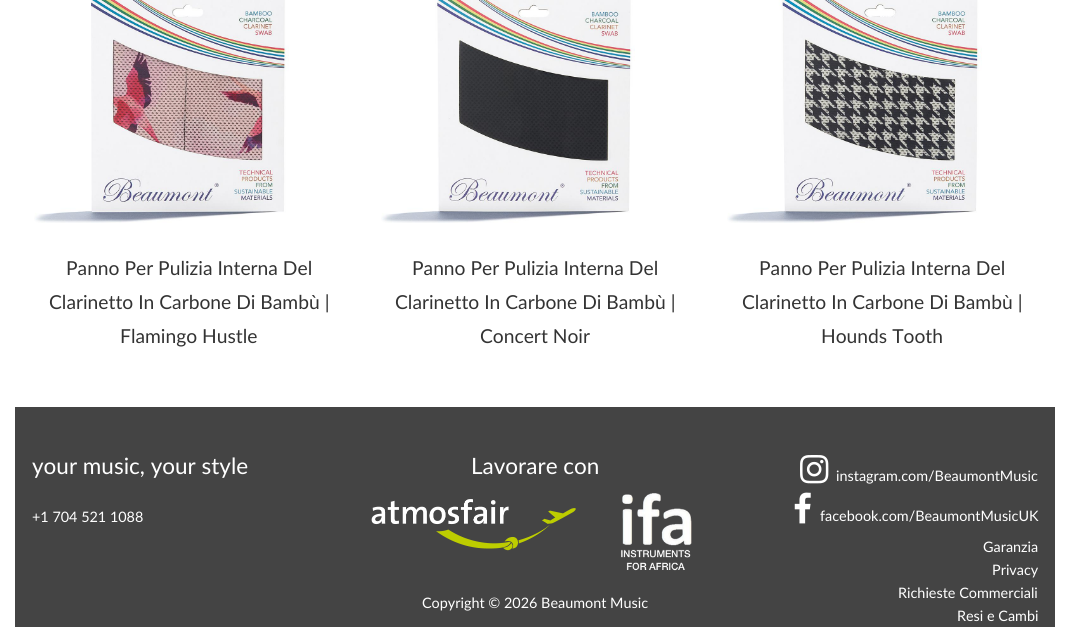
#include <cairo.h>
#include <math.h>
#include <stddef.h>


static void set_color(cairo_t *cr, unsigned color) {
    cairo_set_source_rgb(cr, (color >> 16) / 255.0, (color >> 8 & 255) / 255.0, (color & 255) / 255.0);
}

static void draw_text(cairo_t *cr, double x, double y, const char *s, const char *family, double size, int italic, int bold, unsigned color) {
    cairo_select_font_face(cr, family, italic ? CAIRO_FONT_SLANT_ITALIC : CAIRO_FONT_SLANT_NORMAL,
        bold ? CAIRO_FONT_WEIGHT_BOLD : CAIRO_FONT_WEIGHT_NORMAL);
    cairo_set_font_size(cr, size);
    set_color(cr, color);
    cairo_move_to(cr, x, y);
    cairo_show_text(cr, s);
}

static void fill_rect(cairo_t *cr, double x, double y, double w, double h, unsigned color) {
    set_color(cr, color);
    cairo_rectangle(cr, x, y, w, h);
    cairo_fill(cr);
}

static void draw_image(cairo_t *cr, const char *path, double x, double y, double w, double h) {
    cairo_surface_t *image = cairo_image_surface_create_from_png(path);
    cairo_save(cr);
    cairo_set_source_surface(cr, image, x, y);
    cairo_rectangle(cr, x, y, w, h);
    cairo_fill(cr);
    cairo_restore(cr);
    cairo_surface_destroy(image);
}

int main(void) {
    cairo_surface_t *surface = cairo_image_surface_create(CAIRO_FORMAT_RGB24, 1070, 627);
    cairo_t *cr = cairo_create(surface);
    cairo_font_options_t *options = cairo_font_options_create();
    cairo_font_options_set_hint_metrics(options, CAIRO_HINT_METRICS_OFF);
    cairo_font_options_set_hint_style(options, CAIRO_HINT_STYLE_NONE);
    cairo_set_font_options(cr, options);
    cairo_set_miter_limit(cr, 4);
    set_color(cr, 0xFFFFFF);
    cairo_paint(cr);
    draw_image(cr, "assets/img1.png", 34, 0, 255, 223);
    draw_text(cr, 66, 275, "Panno Per Pulizia Interna Del", "Lato", 19.25, 0, 0, 0x333333);
    draw_text(cr, 49, 309, "Clarinetto In Carbone Di Bambù |", "Lato", 19.25, 0, 0, 0x333333);
    draw_text(cr, 120, 343, "Flamingo Hustle", "Lato", 19.25, 0, 0, 0x333333);
    draw_image(cr, "assets/img2.png", 381, 0, 254, 223);
    draw_text(cr, 412, 275, "Panno Per Pulizia Interna Del", "Lato", 19.25, 0, 0, 0x333333);
    draw_text(cr, 395, 309, "Clarinetto In Carbone Di Bambù |", "Lato", 19.25, 0, 0, 0x333333);
    draw_text(cr, 480, 343, "Concert Noir", "Lato", 19.25, 0, 0, 0x333333);
    draw_image(cr, "assets/img3.png", 727, 0, 255, 223);
    draw_text(cr, 759, 275, "Panno Per Pulizia Interna Del", "Lato", 19.25, 0, 0, 0x333333);
    draw_text(cr, 742, 309, "Clarinetto In Carbone Di Bambù |", "Lato", 19.25, 0, 0, 0x333333);
    draw_text(cr, 821, 343, "Hounds Tooth", "Lato", 19.25, 0, 0, 0x333333);
    fill_rect(cr, 15, 407, 1040, 220, 0x444444);
    draw_text(cr, 32, 474, "your music, your style", "Lato", 22.5, 0, 0, 0xFFFFFF);
    draw_text(cr, 32, 522, "+1 704 521 1088", "Lato", 14.4, 0, 0, 0xFFFFFF);
    draw_text(cr, 471, 474, "Lavorare con", "Lato", 22.5, 0, 0, 0xFFFFFF);
    draw_image(cr, "assets/img4.png", 371, 499, 205, 52);
    draw_image(cr, "assets/img5.png", 621, 493, 71, 78);
    draw_text(cr, 422, 608, "Copyright © 2026 Beaumont Music", "Lato", 14.4, 0, 0, 0xFFFFFF);
    draw_image(cr, "assets/img6.png", 800, 455, 29, 29);
    draw_text(cr, 836, 481, "instagram.com/BeaumontMusic", "Lato", 14.4, 0, 0, 0xFFFFFF);
    draw_image(cr, "assets/img7.png", 794, 492, 17, 32);
    draw_text(cr, 820, 521, "facebook.com/BeaumontMusicUK", "Lato", 14.4, 0, 0, 0xFFFFFF);
    draw_text(cr, 983, 552, "Garanzia", "Lato", 14.4, 0, 0, 0xFFFFFF);
    draw_text(cr, 992, 575, "Privacy", "Lato", 14.4, 0, 0, 0xFFFFFF);
    draw_text(cr, 898, 598, "Richieste Commerciali", "Lato", 14.4, 0, 0, 0xFFFFFF);
    draw_text(cr, 957, 621, "Resi e Cambi", "Lato", 14.4, 0, 0, 0xFFFFFF);
    cairo_surface_write_to_png(surface, "output.png");
    cairo_font_options_destroy(options);
    cairo_destroy(cr);
    cairo_surface_destroy(surface);
    return 0;
}
